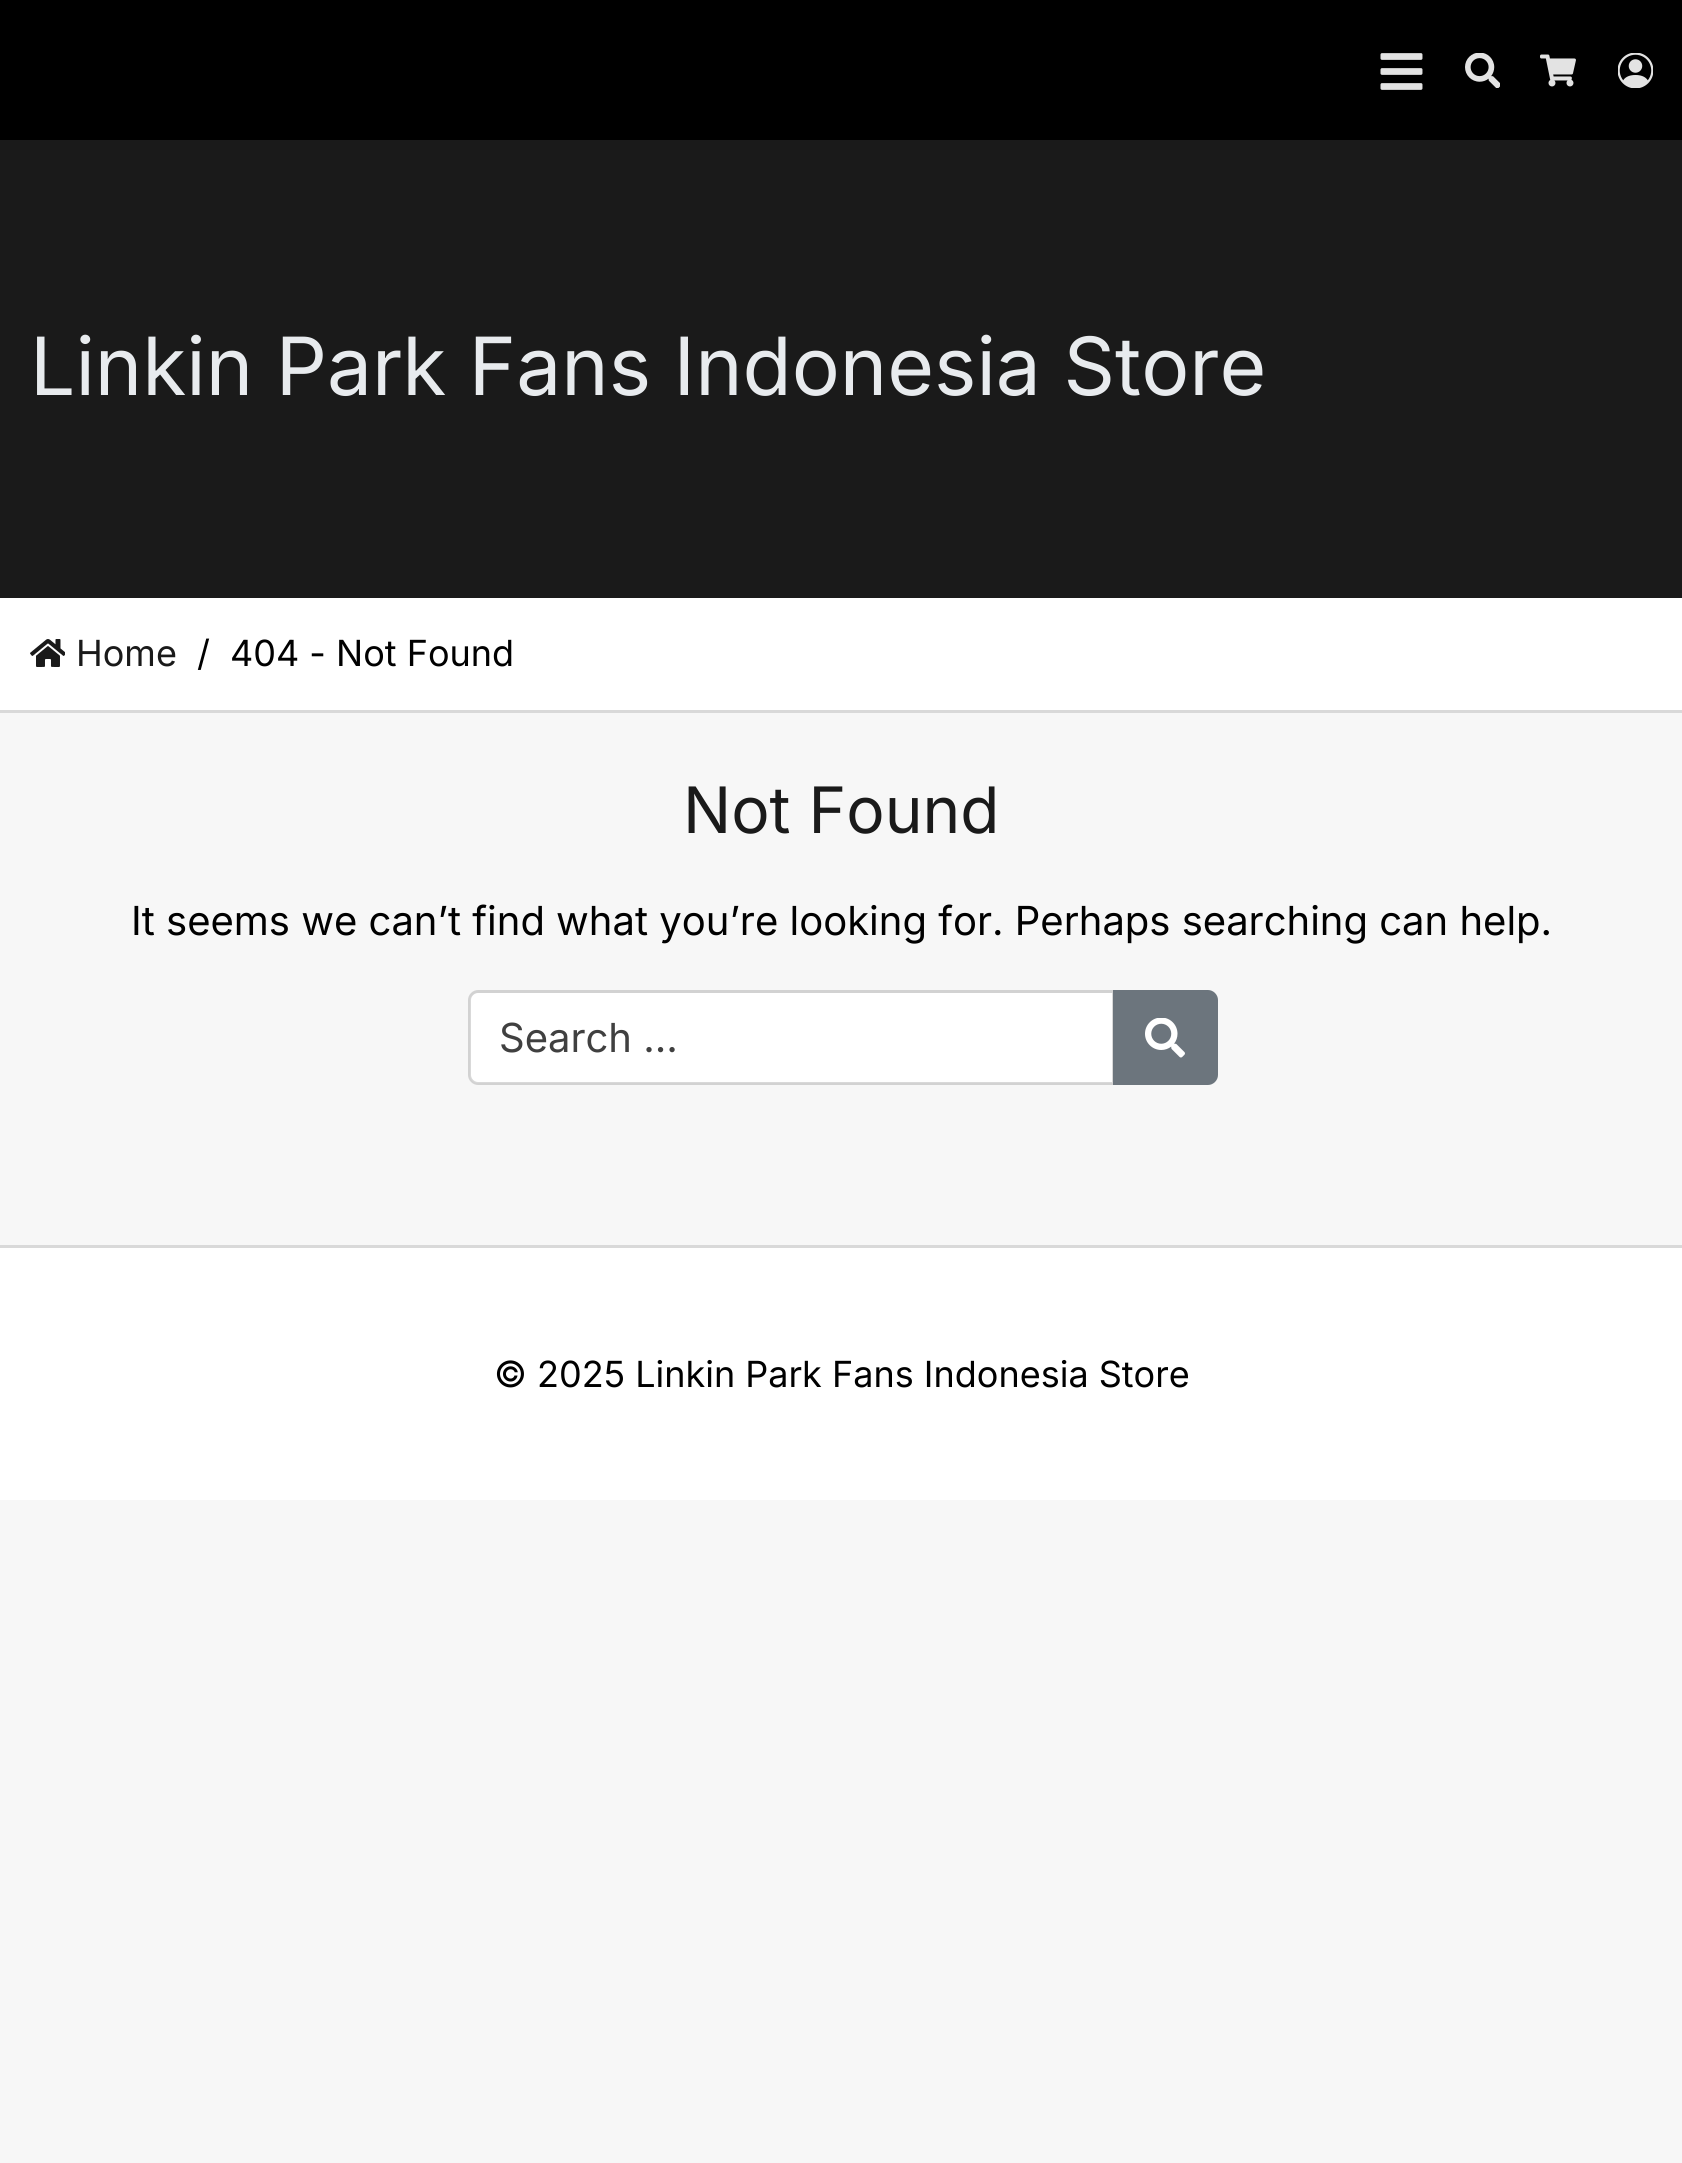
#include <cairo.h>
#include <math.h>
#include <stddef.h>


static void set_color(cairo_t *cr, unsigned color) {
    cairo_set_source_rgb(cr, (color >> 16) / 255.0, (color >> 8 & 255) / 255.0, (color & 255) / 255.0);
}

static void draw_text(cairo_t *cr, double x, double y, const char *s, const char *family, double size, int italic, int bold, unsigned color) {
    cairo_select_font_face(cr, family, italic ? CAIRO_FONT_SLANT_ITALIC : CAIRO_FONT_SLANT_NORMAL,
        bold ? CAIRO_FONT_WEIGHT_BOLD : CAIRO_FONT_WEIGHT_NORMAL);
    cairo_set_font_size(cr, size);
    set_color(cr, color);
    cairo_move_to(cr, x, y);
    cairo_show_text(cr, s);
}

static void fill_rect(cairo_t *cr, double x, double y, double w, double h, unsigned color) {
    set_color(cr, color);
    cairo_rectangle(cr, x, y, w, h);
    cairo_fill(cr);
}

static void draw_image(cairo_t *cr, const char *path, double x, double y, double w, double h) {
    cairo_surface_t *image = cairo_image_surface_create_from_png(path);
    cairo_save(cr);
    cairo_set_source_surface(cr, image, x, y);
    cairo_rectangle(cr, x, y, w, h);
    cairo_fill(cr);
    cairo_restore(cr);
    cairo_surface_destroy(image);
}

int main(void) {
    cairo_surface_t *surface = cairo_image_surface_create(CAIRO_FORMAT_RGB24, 1682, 2163);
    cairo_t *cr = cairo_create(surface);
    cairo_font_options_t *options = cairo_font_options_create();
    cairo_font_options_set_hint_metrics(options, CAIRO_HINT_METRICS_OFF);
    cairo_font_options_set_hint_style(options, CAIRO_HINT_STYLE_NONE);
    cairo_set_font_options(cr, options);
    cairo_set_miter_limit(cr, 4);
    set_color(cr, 0xF7F7F7);
    cairo_paint(cr);
    fill_rect(cr, 0, 0, 1682, 140, 0x000000);
    draw_image(cr, "assets/img1.png", 1380, 53, 43, 37);
    draw_image(cr, "assets/img2.png", 1465, 53, 35, 35);
    draw_image(cr, "assets/img3.png", 1540, 54, 36, 33);
    draw_image(cr, "assets/img4.png", 1618, 53, 35, 35);
    fill_rect(cr, 0, 140, 1682, 458, 0x1A1A1A);
    draw_text(cr, 30, 395, "Linkin Park Fans Indonesia Store", "Inter", 80.25, 0, 0, 0xE8EBEE);
    fill_rect(cr, 0, 598, 1682, 112, 0xFFFFFF);
    fill_rect(cr, 0, 710, 1682, 3, 0xD9D9D9);
    draw_image(cr, "assets/img5.png", 30, 639, 35, 28);
    draw_text(cr, 76, 666, "Home", "Inter", 36, 0, 0, 0x1A1A1A);
    draw_text(cr, 197, 666, "/", "Inter", 36, 0, 0, 0x000000);
    draw_text(cr, 230, 666, "404 - Not Found", "Inter", 36, 0, 0, 0x000000);
    draw_text(cr, 683, 833, "Not Found", "Inter", 64, 0, 0, 0x1A1A1A);
    draw_text(cr, 131, 935, "It seems we can’t find what you’re looking for. Perhaps searching can help.", "Inter", 40, 0, 0, 0x000000);
    set_color(cr, 0xFFFFFF);
    cairo_new_path(cr);
    cairo_move_to(cr, 478, 993);
    cairo_line_to(cr, 1113, 993);
    cairo_line_to(cr, 1113, 1083);
    cairo_line_to(cr, 478, 1083);
    cairo_curve_to(cr, 473.5, 1083, 470, 1079.5, 470, 1075);
    cairo_line_to(cr, 470, 1001);
    cairo_curve_to(cr, 470, 996.5, 473.5, 993, 478, 993);
    cairo_close_path(cr);
    cairo_fill(cr);
    cairo_new_path(cr);
    cairo_move_to(cr, 478, 991.5);
    cairo_line_to(cr, 1113.5, 991.5);
    cairo_line_to(cr, 1113.5, 1083.5);
    cairo_line_to(cr, 478, 1083.5);
    cairo_curve_to(cr, 473.5, 1083.5, 469.5, 1079.5, 469.5, 1075);
    cairo_line_to(cr, 469.5, 1000);
    cairo_curve_to(cr, 469.5, 995.5, 473.5, 991.5, 478, 991.5);
    cairo_close_path(cr);
    cairo_set_source_rgba(cr, 0, 0, 0, 0.15);
    cairo_set_line_width(cr, 3);
    cairo_stroke(cr);
    draw_text(cr, 499, 1052, "Search …", "Inter", 40, 0, 0, 0x404040);
    set_color(cr, 0x6C757D);
    cairo_new_path(cr);
    cairo_move_to(cr, 1114.5, 991.5);
    cairo_line_to(cr, 1208, 991.5);
    cairo_curve_to(cr, 1212.5, 991.5, 1216.5, 995.5, 1216.5, 1000);
    cairo_line_to(cr, 1216.5, 1075);
    cairo_curve_to(cr, 1216.5, 1079.5, 1212.5, 1083.5, 1208, 1083.5);
    cairo_line_to(cr, 1114.5, 1083.5);
    cairo_close_path(cr);
    cairo_fill_preserve(cr);
    cairo_stroke(cr);
    draw_image(cr, "assets/img6.png", 1145, 1018, 40, 40);
    fill_rect(cr, 0, 1248, 1682, 252, 0xFFFFFF);
    fill_rect(cr, 0, 1245, 1682, 3, 0xD9D9D9);
    draw_text(cr, 494, 1387, "© 2025 Linkin Park Fans Indonesia Store", "Inter", 36, 0, 0, 0x000000);
    cairo_surface_write_to_png(surface, "output.png");
    cairo_font_options_destroy(options);
    cairo_destroy(cr);
    cairo_surface_destroy(surface);
    return 0;
}
